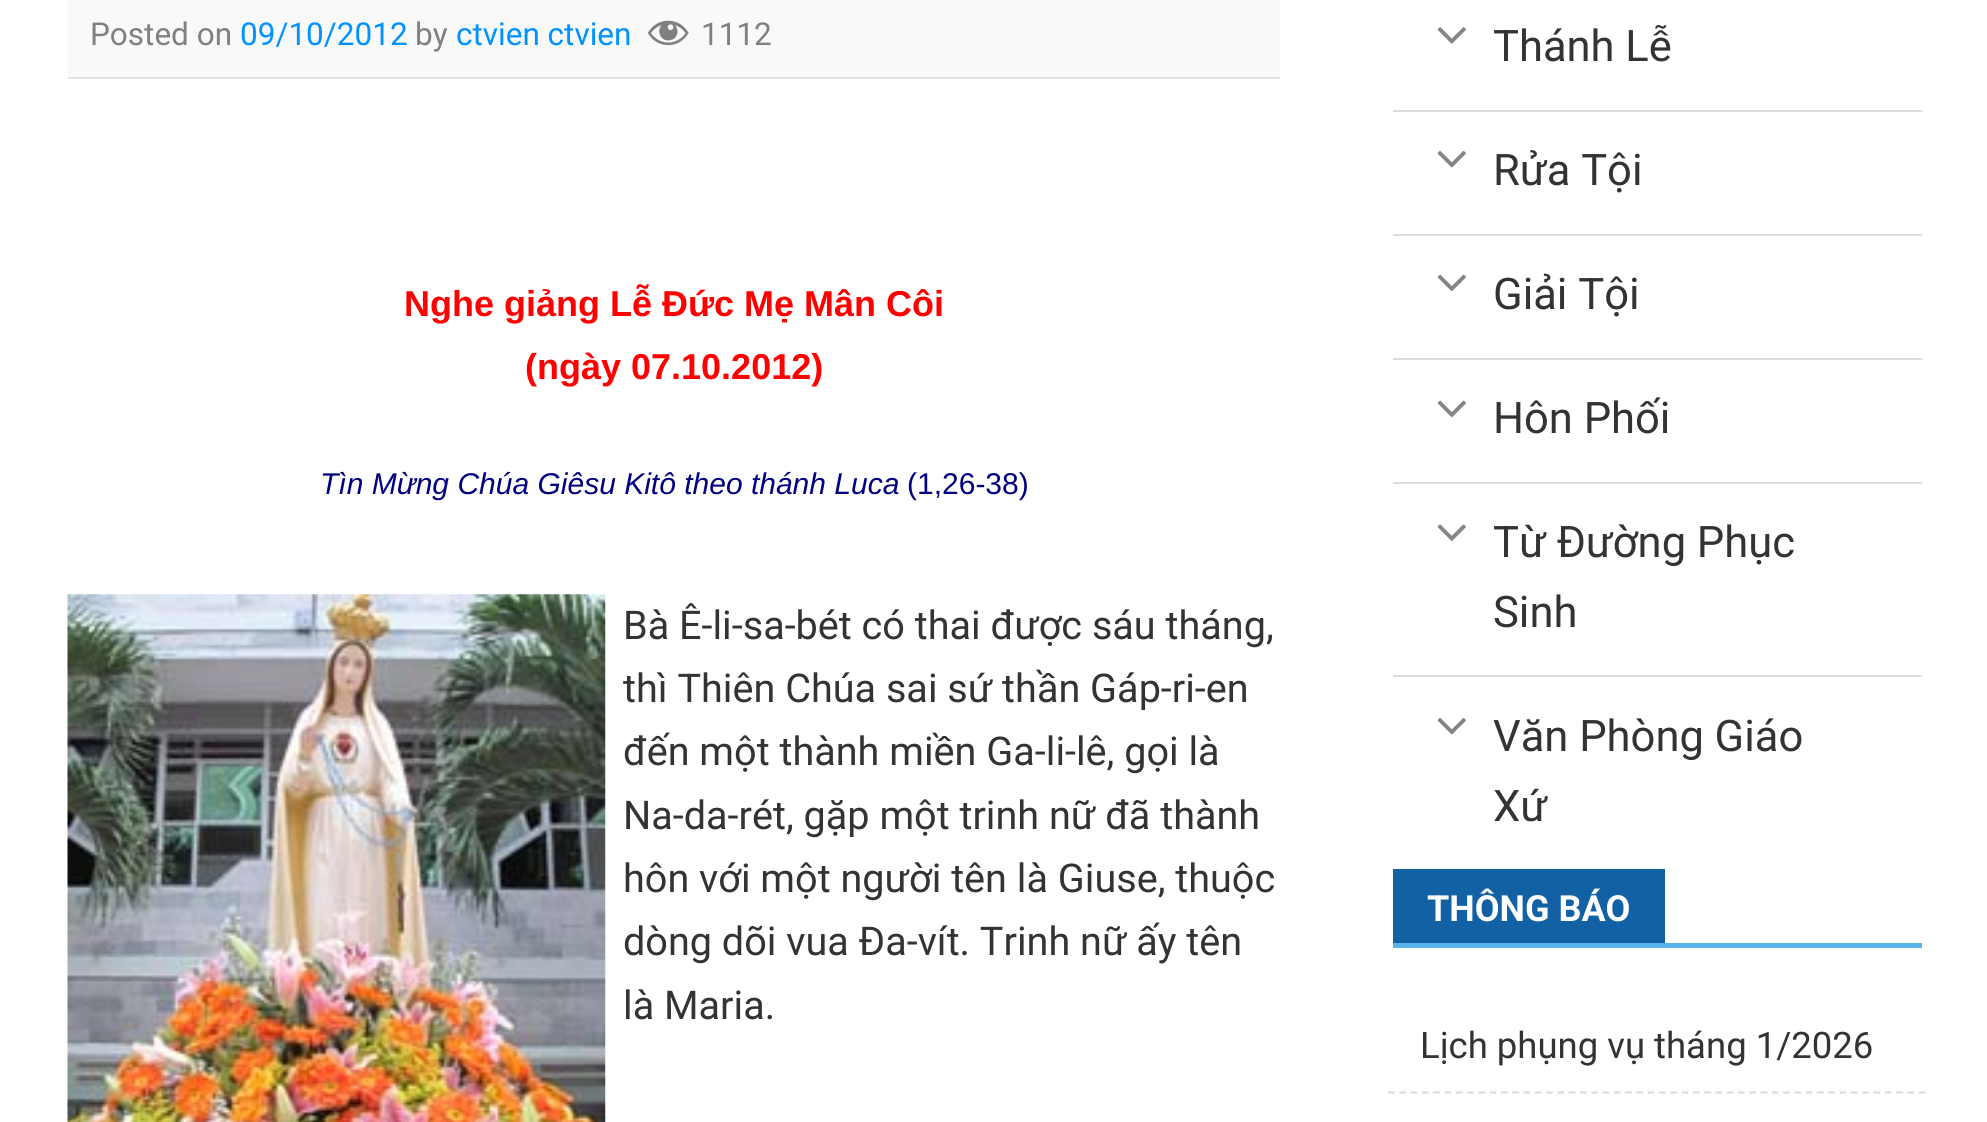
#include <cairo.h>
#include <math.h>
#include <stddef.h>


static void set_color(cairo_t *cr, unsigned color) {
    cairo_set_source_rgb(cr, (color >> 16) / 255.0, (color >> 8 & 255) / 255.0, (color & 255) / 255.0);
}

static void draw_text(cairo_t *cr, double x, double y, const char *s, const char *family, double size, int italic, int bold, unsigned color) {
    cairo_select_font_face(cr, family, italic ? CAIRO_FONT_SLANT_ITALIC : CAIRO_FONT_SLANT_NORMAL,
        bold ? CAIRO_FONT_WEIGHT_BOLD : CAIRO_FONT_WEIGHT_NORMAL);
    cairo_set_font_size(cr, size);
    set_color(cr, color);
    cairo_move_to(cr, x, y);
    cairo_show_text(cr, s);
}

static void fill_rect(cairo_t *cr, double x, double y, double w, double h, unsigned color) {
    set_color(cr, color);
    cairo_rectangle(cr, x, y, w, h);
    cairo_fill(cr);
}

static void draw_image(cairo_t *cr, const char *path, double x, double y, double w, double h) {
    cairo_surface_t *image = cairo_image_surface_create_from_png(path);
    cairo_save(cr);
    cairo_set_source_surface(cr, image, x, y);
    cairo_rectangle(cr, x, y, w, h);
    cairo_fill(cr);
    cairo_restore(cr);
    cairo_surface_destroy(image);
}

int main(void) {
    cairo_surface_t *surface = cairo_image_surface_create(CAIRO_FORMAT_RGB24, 1987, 1122);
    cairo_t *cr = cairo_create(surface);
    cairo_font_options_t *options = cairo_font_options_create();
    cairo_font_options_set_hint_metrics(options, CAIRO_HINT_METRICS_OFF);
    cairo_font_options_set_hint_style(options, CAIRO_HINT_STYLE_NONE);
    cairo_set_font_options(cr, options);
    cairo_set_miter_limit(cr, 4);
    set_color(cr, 0xFFFFFF);
    cairo_paint(cr);
    fill_rect(cr, 68, 0, 1212, 77, 0xF9F9F9);
    fill_rect(cr, 68, 77, 1212, 2, 0xE2E2E2);
    draw_text(cr, 90, 45, "Posted on", "Roboto", 31.5, 0, 0, 0x808080);
    draw_text(cr, 240, 45, "09/10/2012", "Roboto", 31.5, 0, 0, 0x0092FF);
    draw_text(cr, 415, 45, "by", "Roboto", 31.5, 0, 0, 0x808080);
    draw_text(cr, 456, 45, "ctvien ctvien", "Roboto", 31.5, 0, 0, 0x0092FF);
    draw_image(cr, "assets/img1.png", 647, 20, 42, 26);
    draw_text(cr, 701, 45, "1112", "Roboto", 31.5, 0, 0, 0x808080);
    draw_text(cr, 404, 316, "Nghe giảng Lễ Đức Mẹ Mân Côi", "Liberation Sans", 36, 0, 1, 0xFF0000);
    draw_text(cr, 525, 379, "(ngày 07.10.2012)", "Liberation Sans", 36, 0, 1, 0xFF0000);
    draw_text(cr, 320, 494, "Tìn Mừng Chúa Giêsu Kitô theo thánh Luca", "Liberation Sans", 30, 1, 0, 0x000080);
    draw_text(cr, 907, 494, "(1,26-38)", "Liberation Sans", 30, 0, 0, 0x000080);
    draw_image(cr, "assets/img2.png", 67, 594, 539, 528);
    draw_text(cr, 623, 639, "Bà Ê-li-sa-bét có thai được sáu tháng,", "Roboto", 39.6, 0, 0, 0x333333);
    draw_text(cr, 623, 702, "thì Thiên Chúa sai sứ thần Gáp-ri-en", "Roboto", 39.6, 0, 0, 0x333333);
    draw_text(cr, 623, 765, "đến một thành miền Ga-li-lê, gọi là", "Roboto", 39.6, 0, 0, 0x333333);
    draw_text(cr, 623, 829, "Na-da-rét, gặp một trinh nữ đã thành", "Roboto", 39.6, 0, 0, 0x333333);
    draw_text(cr, 623, 892, "hôn với một người tên là Giuse, thuộc", "Roboto", 39.6, 0, 0, 0x333333);
    draw_text(cr, 623, 955, "dòng dõi vua Đa-vít. Trinh nữ ấy tên", "Roboto", 39.6, 0, 0, 0x333333);
    draw_text(cr, 623, 1019, "là Maria.", "Roboto", 39.6, 0, 0, 0x333333);
    draw_image(cr, "assets/img3.png", 1437, 27, 29, 17);
    draw_text(cr, 1493, 61, "Thánh Lễ", "Roboto", 43.5, 0, 0, 0x333333);
    fill_rect(cr, 1393, 110, 529, 2, 0xDDDDDD);
    draw_image(cr, "assets/img4.png", 1437, 151, 29, 17);
    draw_text(cr, 1493, 185, "Rửa Tội", "Roboto", 43.5, 0, 0, 0x333333);
    fill_rect(cr, 1393, 234, 529, 2, 0xDDDDDD);
    draw_image(cr, "assets/img5.png", 1437, 274, 29, 18);
    draw_text(cr, 1493, 309, "Giải Tội", "Roboto", 43.5, 0, 0, 0x333333);
    fill_rect(cr, 1393, 358, 529, 2, 0xDDDDDD);
    draw_image(cr, "assets/img5.png", 1437, 400, 29, 18);
    draw_text(cr, 1493, 433, "Hôn Phối", "Roboto", 43.5, 0, 0, 0x333333);
    fill_rect(cr, 1393, 482, 529, 2, 0xDDDDDD);
    draw_image(cr, "assets/img6.png", 1437, 524, 29, 17);
    draw_text(cr, 1493, 557, "Từ Đường Phục", "Roboto", 43.5, 0, 0, 0x333333);
    draw_text(cr, 1493, 627, "Sinh", "Roboto", 43.5, 0, 0, 0x333333);
    fill_rect(cr, 1393, 675, 529, 2, 0xDDDDDD);
    draw_image(cr, "assets/img4.png", 1437, 718, 29, 17);
    draw_text(cr, 1493, 751, "Văn Phòng Giáo", "Roboto", 43.5, 0, 0, 0x333333);
    draw_text(cr, 1493, 821, "Xứ", "Roboto", 43.5, 0, 0, 0x333333);
    fill_rect(cr, 1393, 943, 529, 5, 0x57B2E9);
    fill_rect(cr, 1393, 869, 272, 74, 0x1261A5);
    draw_text(cr, 1427, 921, "THÔNG BÁO", "Roboto", 36, 0, 1, 0xFFFFFF);
    cairo_new_path(cr);
    cairo_move_to(cr, 1388, 1092.5);
    cairo_line_to(cr, 1926, 1092.5);
    set_color(cr, 0xDDDDDD);
    cairo_set_line_width(cr, 2.2);
    cairo_set_dash(cr, (double[]){6.75, 4.54}, 2, 0);
    cairo_stroke(cr);
    draw_text(cr, 1420, 1058, "Lịch phụng vụ tháng 1/2026", "Roboto", 36.5, 0, 0, 0x333333);
    cairo_surface_write_to_png(surface, "output.png");
    cairo_font_options_destroy(options);
    cairo_destroy(cr);
    cairo_surface_destroy(surface);
    return 0;
}
